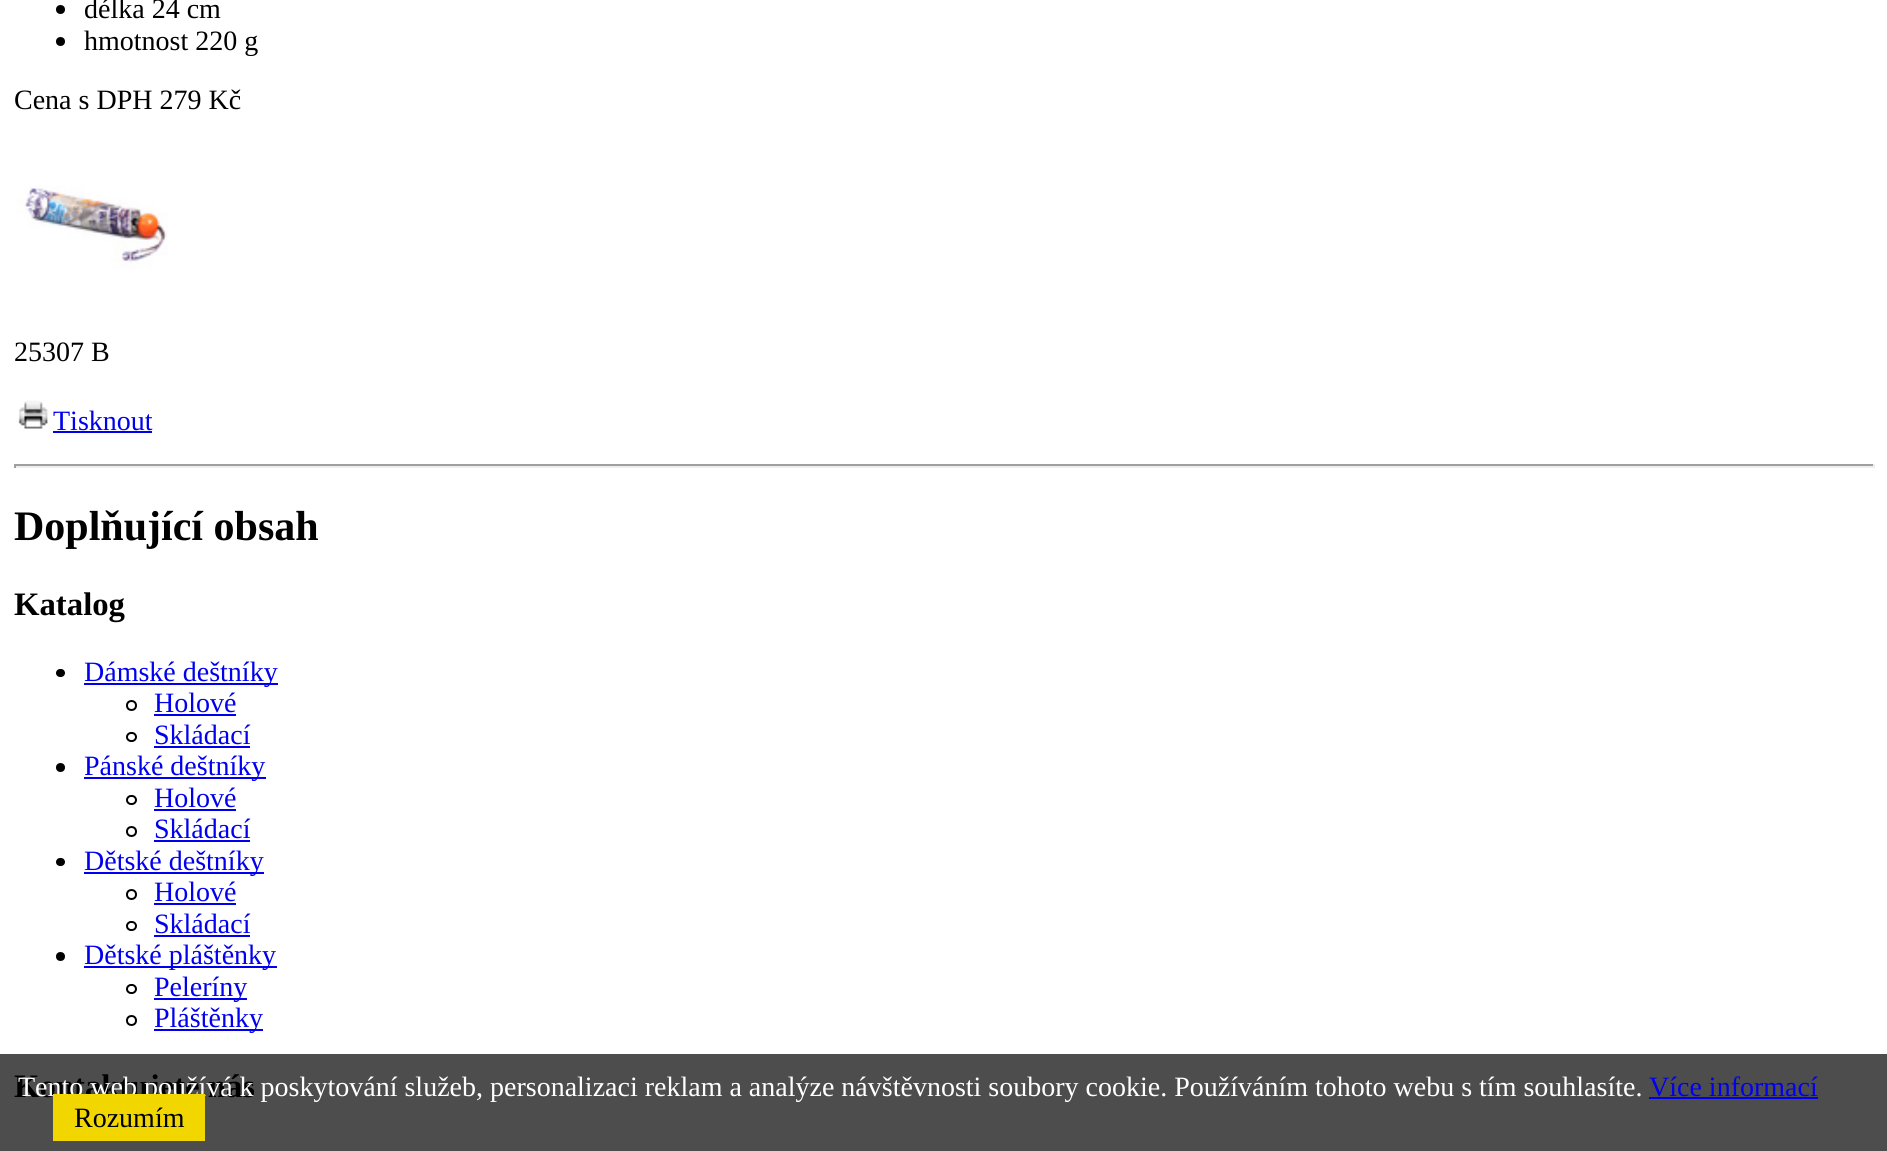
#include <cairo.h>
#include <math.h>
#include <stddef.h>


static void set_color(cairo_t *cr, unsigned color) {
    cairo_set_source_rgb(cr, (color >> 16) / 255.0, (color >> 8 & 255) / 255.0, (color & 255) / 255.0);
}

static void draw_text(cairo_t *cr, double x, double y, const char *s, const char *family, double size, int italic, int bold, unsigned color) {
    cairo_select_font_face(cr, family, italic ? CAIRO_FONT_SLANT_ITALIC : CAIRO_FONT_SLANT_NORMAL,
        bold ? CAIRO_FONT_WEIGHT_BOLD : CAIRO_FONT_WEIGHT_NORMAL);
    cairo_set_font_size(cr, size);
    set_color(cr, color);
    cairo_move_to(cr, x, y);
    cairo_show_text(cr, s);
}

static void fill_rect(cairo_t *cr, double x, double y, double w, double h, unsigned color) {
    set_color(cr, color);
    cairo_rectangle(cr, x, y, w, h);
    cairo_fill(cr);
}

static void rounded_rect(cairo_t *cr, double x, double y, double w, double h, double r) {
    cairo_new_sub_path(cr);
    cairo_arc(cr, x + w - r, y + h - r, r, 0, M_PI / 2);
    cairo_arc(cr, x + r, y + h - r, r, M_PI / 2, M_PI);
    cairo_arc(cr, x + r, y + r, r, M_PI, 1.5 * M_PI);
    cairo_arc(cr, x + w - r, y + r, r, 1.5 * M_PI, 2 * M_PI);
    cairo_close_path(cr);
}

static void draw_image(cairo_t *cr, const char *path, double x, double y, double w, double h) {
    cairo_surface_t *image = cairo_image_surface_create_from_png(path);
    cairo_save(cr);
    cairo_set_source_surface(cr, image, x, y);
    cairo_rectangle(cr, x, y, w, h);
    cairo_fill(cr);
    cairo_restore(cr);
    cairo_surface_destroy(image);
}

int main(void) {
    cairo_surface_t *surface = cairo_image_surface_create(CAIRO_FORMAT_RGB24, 1887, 1151);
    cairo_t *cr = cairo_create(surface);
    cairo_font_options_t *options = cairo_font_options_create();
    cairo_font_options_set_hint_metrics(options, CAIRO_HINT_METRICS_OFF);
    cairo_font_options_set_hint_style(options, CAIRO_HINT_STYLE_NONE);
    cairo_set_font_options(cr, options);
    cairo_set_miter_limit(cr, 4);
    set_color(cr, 0xFFFFFF);
    cairo_paint(cr);
    fill_rect(cr, 0, 1054, 1887, 97, 0x4D4D4D);
    set_color(cr, 0x000000);
    cairo_arc(cr, 60.5, 9.5, 4.5, 0, 2 * M_PI);
    cairo_fill(cr);
    draw_text(cr, 84, 18, "délka 24 cm", "Liberation Serif", 28, 0, 0, 0x000000);
    cairo_new_path(cr);
    cairo_arc(cr, 60.5, 41.5, 4.5, 0, 2 * M_PI);
    cairo_fill(cr);
    draw_text(cr, 84, 50, "hmotnost 220 g", "Liberation Serif", 28, 0, 0, 0x000000);
    draw_text(cr, 14, 109, "Cena s DPH 279 Kč", "Liberation Serif", 28, 0, 0, 0x000000);
    draw_image(cr, "assets/img1.png", 16, 185, 152, 84);
    draw_text(cr, 14, 361, "25307 B", "Liberation Serif", 28, 0, 0, 0x000000);
    draw_image(cr, "assets/img2.png", 18, 400, 30, 29);
    draw_text(cr, 53, 430, "Tisknout", "Liberation Serif", 28, 0, 0, 0x0000EE);
    fill_rect(cr, 53, 431, 99, 2, 0x0000EE);
    fill_rect(cr, 14, 464, 1860, 2, 0x9F9F9F);
    fill_rect(cr, 1873, 464, 2, 4, 0xEEEEEE);
    fill_rect(cr, 14, 466, 1860, 2, 0xEEEEEE);
    fill_rect(cr, 14, 464, 2, 4, 0x9F9F9F);
    draw_text(cr, 14, 540, "Doplňující obsah", "Liberation Serif", 42, 0, 1, 0x000000);
    draw_text(cr, 14, 615, "Katalog", "Liberation Serif", 32.75, 0, 1, 0x000000);
    rounded_rect(cr, 56, 669, 9, 8, 4);
    cairo_fill(cr);
    fill_rect(cr, 84, 683, 194, 2, 0x0000EE);
    draw_text(cr, 84, 681, "Dámské deštníky", "Liberation Serif", 28, 0, 0, 0x0000EE);
    cairo_new_path(cr);
    cairo_arc(cr, 131.5, 705.5, 4.5, 0, 2 * M_PI);
    set_color(cr, 0x000000);
    cairo_stroke(cr);
    draw_text(cr, 154, 712, "Holové", "Liberation Serif", 28, 0, 0, 0x0000EE);
    fill_rect(cr, 154, 714, 82, 2, 0x0000EE);
    rounded_rect(cr, 127, 733, 9, 8, 4);
    set_color(cr, 0x000000);
    cairo_stroke(cr);
    draw_text(cr, 154, 744, "Skládací", "Liberation Serif", 28, 0, 0, 0x0000EE);
    fill_rect(cr, 154, 746, 96, 2, 0x0000EE);
    set_color(cr, 0x000000);
    cairo_new_path(cr);
    cairo_arc(cr, 60.5, 767.5, 4.5, 0, 2 * M_PI);
    cairo_fill(cr);
    fill_rect(cr, 84, 777, 182, 2, 0x0000EE);
    draw_text(cr, 84, 775, "Pánské deštníky", "Liberation Serif", 28, 0, 0, 0x0000EE);
    rounded_rect(cr, 127, 796, 9, 8, 4);
    set_color(cr, 0x000000);
    cairo_stroke(cr);
    draw_text(cr, 154, 807, "Holové", "Liberation Serif", 28, 0, 0, 0x0000EE);
    fill_rect(cr, 154, 809, 82, 2, 0x0000EE);
    cairo_new_path(cr);
    cairo_arc(cr, 131.5, 831.5, 4.5, 0, 2 * M_PI);
    set_color(cr, 0x000000);
    cairo_stroke(cr);
    draw_text(cr, 154, 838, "Skládací", "Liberation Serif", 28, 0, 0, 0x0000EE);
    fill_rect(cr, 154, 840, 96, 2, 0x0000EE);
    set_color(cr, 0x000000);
    rounded_rect(cr, 56, 858, 9, 8, 4);
    cairo_fill(cr);
    fill_rect(cr, 84, 872, 180, 2, 0x0000EE);
    draw_text(cr, 84, 870, "Dětské deštníky", "Liberation Serif", 28, 0, 0, 0x0000EE);
    cairo_new_path(cr);
    cairo_arc(cr, 131.5, 894.5, 4.5, 0, 2 * M_PI);
    set_color(cr, 0x000000);
    cairo_stroke(cr);
    draw_text(cr, 154, 901, "Holové", "Liberation Serif", 28, 0, 0, 0x0000EE);
    fill_rect(cr, 154, 903, 82, 2, 0x0000EE);
    rounded_rect(cr, 127, 922, 9, 8, 4);
    set_color(cr, 0x000000);
    cairo_stroke(cr);
    draw_text(cr, 154, 933, "Skládací", "Liberation Serif", 28, 0, 0, 0x0000EE);
    fill_rect(cr, 154, 935, 96, 2, 0x0000EE);
    set_color(cr, 0x000000);
    cairo_new_path(cr);
    cairo_arc(cr, 60.5, 956.5, 4.5, 0, 2 * M_PI);
    cairo_fill(cr);
    fill_rect(cr, 84, 966, 193, 2, 0x0000EE);
    draw_text(cr, 84, 964, "Dětské pláštěnky", "Liberation Serif", 28, 0, 0, 0x0000EE);
    rounded_rect(cr, 127, 985, 9, 8, 4);
    set_color(cr, 0x000000);
    cairo_stroke(cr);
    fill_rect(cr, 154, 998, 93, 2, 0x0000EE);
    draw_text(cr, 154, 996, "Peleríny", "Liberation Serif", 28, 0, 0, 0x0000EE);
    cairo_new_path(cr);
    cairo_arc(cr, 131.5, 1020.5, 4.5, 0, 2 * M_PI);
    set_color(cr, 0x000000);
    cairo_stroke(cr);
    fill_rect(cr, 154, 1029, 109, 2, 0x0000EE);
    draw_text(cr, 154, 1027, "Pláštěnky", "Liberation Serif", 28, 0, 0, 0x0000EE);
    draw_text(cr, 14, 1097, "Kontaktujete nás", "Liberation Serif", 32.75, 0, 1, 0x000000);
    draw_text(cr, 18, 1096, "Tento web používá k poskytování služeb, personalizaci reklam a analýze návštěvnosti soubory cookie. Používáním tohoto webu s tím souhlasíte.", "Liberation Serif", 28, 0, 0, 0xFFFFFF);
    draw_text(cr, 1649, 1096, "Více informací", "Liberation Serif", 28, 0, 0, 0x0000EE);
    fill_rect(cr, 1649, 1097, 169, 2, 0x0000EE);
    fill_rect(cr, 53, 1094, 152, 47, 0xF1D600);
    draw_text(cr, 74, 1127, "Rozumím", "Liberation Serif", 28, 0, 0, 0x000000);
    cairo_surface_write_to_png(surface, "output.png");
    cairo_font_options_destroy(options);
    cairo_destroy(cr);
    cairo_surface_destroy(surface);
    return 0;
}
